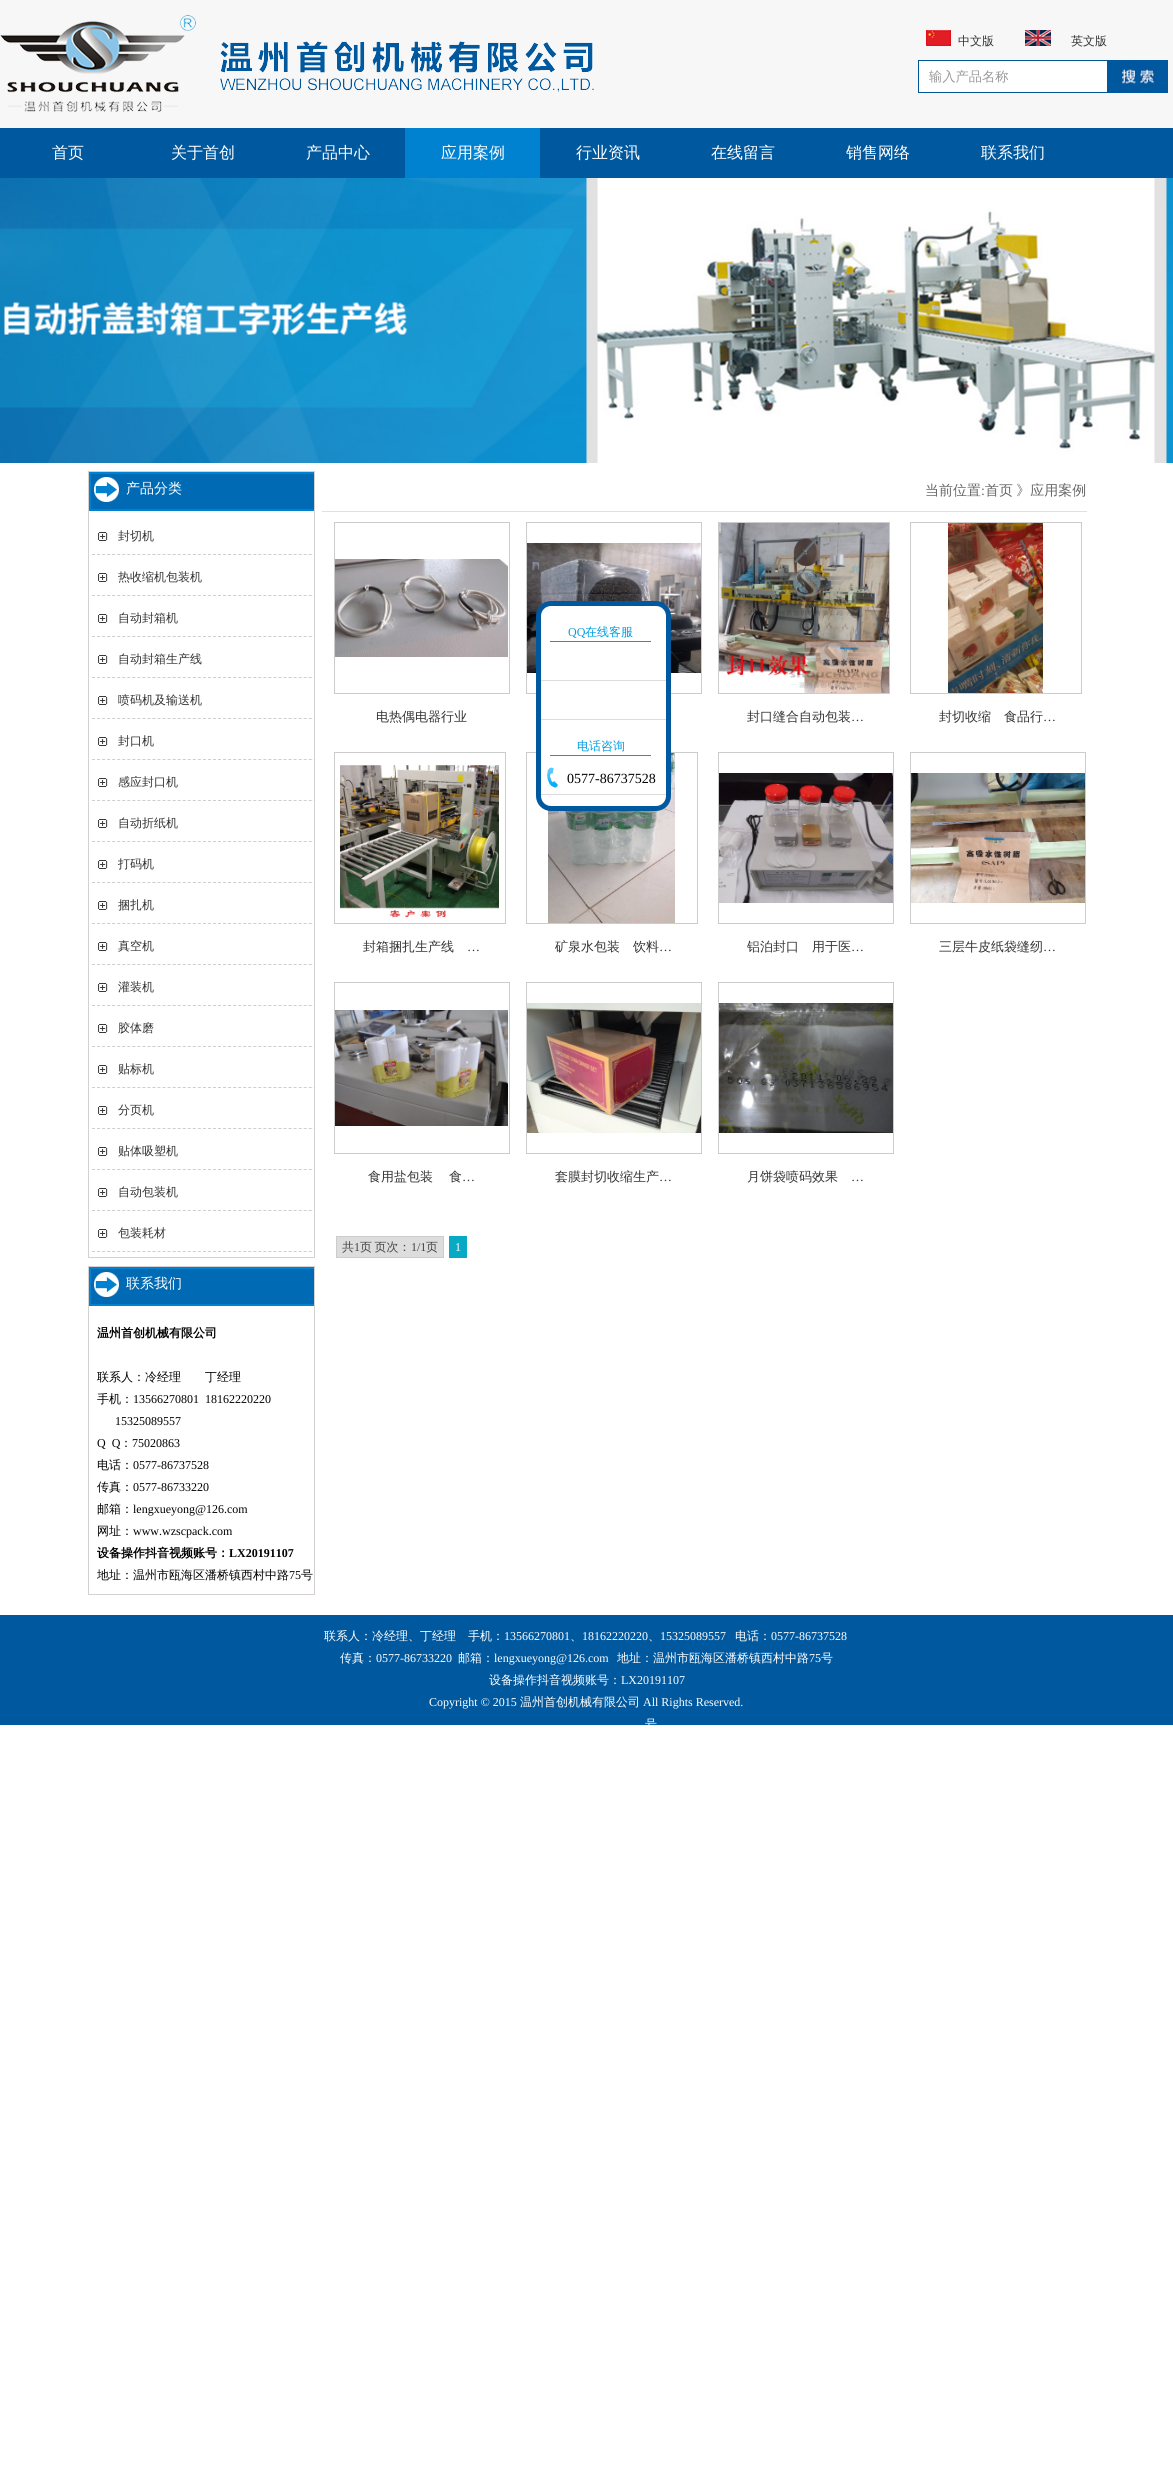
#include <cairo.h>
#include <math.h>
#include <stddef.h>


static void set_color(cairo_t *cr, unsigned color) {
    cairo_set_source_rgb(cr, (color >> 16) / 255.0, (color >> 8 & 255) / 255.0, (color & 255) / 255.0);
}

static void draw_text(cairo_t *cr, double x, double y, const char *s, const char *family, double size, int italic, int bold, unsigned color) {
    cairo_select_font_face(cr, family, italic ? CAIRO_FONT_SLANT_ITALIC : CAIRO_FONT_SLANT_NORMAL,
        bold ? CAIRO_FONT_WEIGHT_BOLD : CAIRO_FONT_WEIGHT_NORMAL);
    cairo_set_font_size(cr, size);
    set_color(cr, color);
    cairo_move_to(cr, x, y);
    cairo_show_text(cr, s);
}

static void draw_spaced(cairo_t *cr, double x, double y, const char *s, double letter, double word) {
    cairo_move_to(cr, x, y);
    while (*s) {
        char ch[5] = {0};
        int n = 0;
        do ch[n++] = *s++; while ((*s & 0xC0) == 0x80);
        cairo_show_text(cr, ch);
        cairo_rel_move_to(cr, letter + word * (*ch == ' '), 0);
    }
}

static void fill_rect(cairo_t *cr, double x, double y, double w, double h, unsigned color) {
    set_color(cr, color);
    cairo_rectangle(cr, x, y, w, h);
    cairo_fill(cr);
}

static void rounded_rect(cairo_t *cr, double x, double y, double w, double h, double r) {
    cairo_new_sub_path(cr);
    cairo_arc(cr, x + w - r, y + h - r, r, 0, M_PI / 2);
    cairo_arc(cr, x + r, y + h - r, r, M_PI / 2, M_PI);
    cairo_arc(cr, x + r, y + r, r, M_PI, 1.5 * M_PI);
    cairo_arc(cr, x + w - r, y + r, r, 1.5 * M_PI, 2 * M_PI);
    cairo_close_path(cr);
}

static void draw_image(cairo_t *cr, const char *path, double x, double y, double w, double h) {
    cairo_surface_t *image = cairo_image_surface_create_from_png(path);
    cairo_save(cr);
    cairo_set_source_surface(cr, image, x, y);
    cairo_rectangle(cr, x, y, w, h);
    cairo_fill(cr);
    cairo_restore(cr);
    cairo_surface_destroy(image);
}

int main(void) {
    cairo_surface_t *surface = cairo_image_surface_create(CAIRO_FORMAT_RGB24, 1173, 2470);
    cairo_t *cr = cairo_create(surface);
    cairo_font_options_t *options = cairo_font_options_create();
    cairo_font_options_set_hint_metrics(options, CAIRO_HINT_METRICS_OFF);
    cairo_font_options_set_hint_style(options, CAIRO_HINT_STYLE_NONE);
    cairo_set_font_options(cr, options);
    cairo_set_miter_limit(cr, 4);
    set_color(cr, 0xFFFFFF);
    cairo_paint(cr);
    fill_rect(cr, 0, 0, 1173, 128, 0xF7F7F7);
    draw_image(cr, "assets/img1.png", 0, 15, 594, 97);
    draw_image(cr, "assets/img2.png", 926, 30, 25, 16);
    draw_text(cr, 958, 45, "中文版", "WenQuanYi Zen Hei Medium", 12, 0, 0, 0x333333);
    draw_image(cr, "assets/img3.png", 1025, 30, 26, 16);
    draw_text(cr, 1071, 45, "英文版", "WenQuanYi Zen Hei Medium", 12, 0, 0, 0x333333);
    set_color(cr, 0xFFFFFF);
    cairo_rectangle(cr, 918.5, 60.5, 189, 32);
    cairo_fill_preserve(cr);
    set_color(cr, 0x005697);
    cairo_set_line_width(cr, 1);
    cairo_stroke(cr);
    draw_text(cr, 929, 81, "输入产品名称", "WenQuanYi Zen Hei Medium", 13.25, 0, 0, 0x999999);
    draw_image(cr, "assets/img4.png", 1108, 60, 60, 33);
    fill_rect(cr, 0, 128, 1173, 50, 0x00589F);
    draw_text(cr, 52, 158, "首页", "WenQuanYi Zen Hei Medium", 16, 0, 0, 0xFFFFFF);
    draw_text(cr, 171, 158, "关于首创", "WenQuanYi Zen Hei Medium", 16, 0, 0, 0xFFFFFF);
    draw_text(cr, 306, 158, "产品中心", "WenQuanYi Zen Hei Medium", 16, 0, 0, 0xFFFFFF);
    fill_rect(cr, 405, 128, 135, 50, 0x0082D0);
    draw_text(cr, 441, 158, "应用案例", "WenQuanYi Zen Hei Medium", 16, 0, 0, 0xFFFFFF);
    draw_text(cr, 576, 158, "行业资讯", "WenQuanYi Zen Hei Medium", 16, 0, 0, 0xFFFFFF);
    draw_text(cr, 711, 158, "在线留言", "WenQuanYi Zen Hei Medium", 16, 0, 0, 0xFFFFFF);
    draw_text(cr, 846, 158, "销售网络", "WenQuanYi Zen Hei Medium", 16, 0, 0, 0xFFFFFF);
    draw_text(cr, 981, 158, "联系我们", "WenQuanYi Zen Hei Medium", 16, 0, 0, 0xFFFFFF);
    draw_image(cr, "assets/img5.png", 0, 178, 1173, 285);
    cairo_rectangle(cr, 88.5, 471.5, 226, 786);
    set_color(cr, 0xD6D1D1);
    cairo_stroke(cr);
    draw_image(cr, "assets/img6.png", 89, 472, 225, 39);
    draw_image(cr, "assets/img7.png", 94, 477, 25, 25);
    draw_text(cr, 126, 493, "产品分类", "WenQuanYi Zen Hei Medium", 14, 0, 0, 0xFFFFFF);
    draw_image(cr, "assets/img8.png", 97, 532, 11, 10);
    cairo_save(cr);
    cairo_rectangle(cr, 87, 471, 228, 1124);
    cairo_clip(cr);
    cairo_new_path(cr);
    cairo_move_to(cr, 92, 554.5);
    cairo_line_to(cr, 322, 554.5);
    set_color(cr, 0xCECECE);
    cairo_set_dash(cr, (double[]){3, 2.04}, 2, 0);
    cairo_stroke(cr);
    cairo_restore(cr);
    draw_text(cr, 118, 540, "封切机", "WenQuanYi Zen Hei Medium", 12, 0, 0, 0x333333);
    draw_image(cr, "assets/img8.png", 97, 573, 11, 10);
    cairo_save(cr);
    cairo_rectangle(cr, 87, 471, 228, 1124);
    cairo_clip(cr);
    cairo_new_path(cr);
    cairo_move_to(cr, 92, 595.5);
    cairo_line_to(cr, 322, 595.5);
    set_color(cr, 0xCECECE);
    cairo_set_dash(cr, (double[]){3, 2.04}, 2, 0);
    cairo_stroke(cr);
    cairo_restore(cr);
    draw_text(cr, 118, 581, "热收缩机包装机", "WenQuanYi Zen Hei Medium", 12, 0, 0, 0x333333);
    draw_image(cr, "assets/img8.png", 97, 614, 11, 10);
    cairo_save(cr);
    cairo_rectangle(cr, 87, 471, 228, 1124);
    cairo_clip(cr);
    cairo_new_path(cr);
    cairo_move_to(cr, 92, 636.5);
    cairo_line_to(cr, 322, 636.5);
    set_color(cr, 0xCECECE);
    cairo_set_dash(cr, (double[]){3, 2.04}, 2, 0);
    cairo_stroke(cr);
    cairo_restore(cr);
    draw_text(cr, 118, 622, "自动封箱机", "WenQuanYi Zen Hei Medium", 12, 0, 0, 0x333333);
    draw_image(cr, "assets/img8.png", 97, 655, 11, 10);
    cairo_save(cr);
    cairo_rectangle(cr, 87, 471, 228, 1124);
    cairo_clip(cr);
    cairo_new_path(cr);
    cairo_move_to(cr, 92, 677.5);
    cairo_line_to(cr, 322, 677.5);
    set_color(cr, 0xCECECE);
    cairo_set_dash(cr, (double[]){3, 2.04}, 2, 0);
    cairo_stroke(cr);
    cairo_restore(cr);
    draw_text(cr, 118, 663, "自动封箱生产线", "WenQuanYi Zen Hei Medium", 12, 0, 0, 0x333333);
    draw_image(cr, "assets/img8.png", 97, 696, 11, 10);
    cairo_save(cr);
    cairo_rectangle(cr, 87, 471, 228, 1124);
    cairo_clip(cr);
    cairo_new_path(cr);
    cairo_move_to(cr, 92, 718.5);
    cairo_line_to(cr, 322, 718.5);
    set_color(cr, 0xCECECE);
    cairo_set_dash(cr, (double[]){3, 2.04}, 2, 0);
    cairo_stroke(cr);
    cairo_restore(cr);
    draw_text(cr, 118, 704, "喷码机及输送机", "WenQuanYi Zen Hei Medium", 12, 0, 0, 0x333333);
    draw_image(cr, "assets/img8.png", 97, 737, 11, 10);
    cairo_save(cr);
    cairo_rectangle(cr, 87, 471, 228, 1124);
    cairo_clip(cr);
    cairo_new_path(cr);
    cairo_move_to(cr, 92, 759.5);
    cairo_line_to(cr, 322, 759.5);
    set_color(cr, 0xCECECE);
    cairo_set_dash(cr, (double[]){3, 2.04}, 2, 0);
    cairo_stroke(cr);
    cairo_restore(cr);
    draw_text(cr, 118, 745, "封口机", "WenQuanYi Zen Hei Medium", 12, 0, 0, 0x333333);
    draw_image(cr, "assets/img8.png", 97, 778, 11, 10);
    cairo_save(cr);
    cairo_rectangle(cr, 87, 471, 228, 1124);
    cairo_clip(cr);
    cairo_new_path(cr);
    cairo_move_to(cr, 92, 800.5);
    cairo_line_to(cr, 322, 800.5);
    set_color(cr, 0xCECECE);
    cairo_set_dash(cr, (double[]){3, 2.04}, 2, 0);
    cairo_stroke(cr);
    cairo_restore(cr);
    draw_text(cr, 118, 786, "感应封口机", "WenQuanYi Zen Hei Medium", 12, 0, 0, 0x333333);
    draw_image(cr, "assets/img8.png", 97, 819, 11, 10);
    cairo_save(cr);
    cairo_rectangle(cr, 87, 471, 228, 1124);
    cairo_clip(cr);
    cairo_new_path(cr);
    cairo_move_to(cr, 92, 841.5);
    cairo_line_to(cr, 322, 841.5);
    set_color(cr, 0xCECECE);
    cairo_set_dash(cr, (double[]){3, 2.04}, 2, 0);
    cairo_stroke(cr);
    cairo_restore(cr);
    draw_text(cr, 118, 827, "自动折纸机", "WenQuanYi Zen Hei Medium", 12, 0, 0, 0x333333);
    draw_image(cr, "assets/img8.png", 97, 860, 11, 10);
    cairo_save(cr);
    cairo_rectangle(cr, 87, 471, 228, 1124);
    cairo_clip(cr);
    cairo_new_path(cr);
    cairo_move_to(cr, 92, 882.5);
    cairo_line_to(cr, 322, 882.5);
    set_color(cr, 0xCECECE);
    cairo_set_dash(cr, (double[]){3, 2.04}, 2, 0);
    cairo_stroke(cr);
    cairo_restore(cr);
    draw_text(cr, 118, 868, "打码机", "WenQuanYi Zen Hei Medium", 12, 0, 0, 0x333333);
    draw_image(cr, "assets/img8.png", 97, 901, 11, 10);
    cairo_save(cr);
    cairo_rectangle(cr, 87, 471, 228, 1124);
    cairo_clip(cr);
    cairo_new_path(cr);
    cairo_move_to(cr, 92, 923.5);
    cairo_line_to(cr, 322, 923.5);
    set_color(cr, 0xCECECE);
    cairo_set_dash(cr, (double[]){3, 2.04}, 2, 0);
    cairo_stroke(cr);
    cairo_restore(cr);
    draw_text(cr, 118, 909, "捆扎机", "WenQuanYi Zen Hei Medium", 12, 0, 0, 0x333333);
    draw_image(cr, "assets/img8.png", 97, 942, 11, 10);
    cairo_save(cr);
    cairo_rectangle(cr, 87, 471, 228, 1124);
    cairo_clip(cr);
    cairo_new_path(cr);
    cairo_move_to(cr, 92, 964.5);
    cairo_line_to(cr, 322, 964.5);
    set_color(cr, 0xCECECE);
    cairo_set_dash(cr, (double[]){3, 2.04}, 2, 0);
    cairo_stroke(cr);
    cairo_restore(cr);
    draw_text(cr, 118, 950, "真空机", "WenQuanYi Zen Hei Medium", 12, 0, 0, 0x333333);
    draw_image(cr, "assets/img8.png", 97, 983, 11, 10);
    cairo_save(cr);
    cairo_rectangle(cr, 87, 471, 228, 1124);
    cairo_clip(cr);
    cairo_new_path(cr);
    cairo_move_to(cr, 92, 1005.5);
    cairo_line_to(cr, 322, 1005.5);
    set_color(cr, 0xCECECE);
    cairo_set_dash(cr, (double[]){3, 2.04}, 2, 0);
    cairo_stroke(cr);
    cairo_restore(cr);
    draw_text(cr, 118, 991, "灌装机", "WenQuanYi Zen Hei Medium", 12, 0, 0, 0x333333);
    draw_image(cr, "assets/img8.png", 97, 1024, 11, 10);
    cairo_save(cr);
    cairo_rectangle(cr, 87, 471, 228, 1124);
    cairo_clip(cr);
    cairo_new_path(cr);
    cairo_move_to(cr, 92, 1046.5);
    cairo_line_to(cr, 322, 1046.5);
    set_color(cr, 0xCECECE);
    cairo_set_dash(cr, (double[]){3, 2.04}, 2, 0);
    cairo_stroke(cr);
    cairo_restore(cr);
    draw_text(cr, 118, 1032, "胶体磨", "WenQuanYi Zen Hei Medium", 12, 0, 0, 0x333333);
    draw_image(cr, "assets/img8.png", 97, 1065, 11, 10);
    cairo_save(cr);
    cairo_rectangle(cr, 87, 471, 228, 1124);
    cairo_clip(cr);
    cairo_new_path(cr);
    cairo_move_to(cr, 92, 1087.5);
    cairo_line_to(cr, 322, 1087.5);
    set_color(cr, 0xCECECE);
    cairo_set_dash(cr, (double[]){3, 2.04}, 2, 0);
    cairo_stroke(cr);
    cairo_restore(cr);
    draw_text(cr, 118, 1073, "贴标机", "WenQuanYi Zen Hei Medium", 12, 0, 0, 0x333333);
    draw_image(cr, "assets/img8.png", 97, 1106, 11, 10);
    cairo_save(cr);
    cairo_rectangle(cr, 87, 471, 228, 1124);
    cairo_clip(cr);
    cairo_new_path(cr);
    cairo_move_to(cr, 92, 1128.5);
    cairo_line_to(cr, 322, 1128.5);
    set_color(cr, 0xCECECE);
    cairo_set_dash(cr, (double[]){3, 2.04}, 2, 0);
    cairo_stroke(cr);
    cairo_restore(cr);
    draw_text(cr, 118, 1114, "分页机", "WenQuanYi Zen Hei Medium", 12, 0, 0, 0x333333);
    draw_image(cr, "assets/img8.png", 97, 1147, 11, 10);
    cairo_save(cr);
    cairo_rectangle(cr, 87, 471, 228, 1124);
    cairo_clip(cr);
    cairo_new_path(cr);
    cairo_move_to(cr, 92, 1169.5);
    cairo_line_to(cr, 322, 1169.5);
    set_color(cr, 0xCECECE);
    cairo_set_dash(cr, (double[]){3, 2.04}, 2, 0);
    cairo_stroke(cr);
    cairo_restore(cr);
    draw_text(cr, 118, 1155, "贴体吸塑机", "WenQuanYi Zen Hei Medium", 12, 0, 0, 0x333333);
    draw_image(cr, "assets/img8.png", 97, 1188, 11, 10);
    cairo_save(cr);
    cairo_rectangle(cr, 87, 471, 228, 1124);
    cairo_clip(cr);
    cairo_new_path(cr);
    cairo_move_to(cr, 92, 1210.5);
    cairo_line_to(cr, 322, 1210.5);
    set_color(cr, 0xCECECE);
    cairo_set_dash(cr, (double[]){3, 2.04}, 2, 0);
    cairo_stroke(cr);
    cairo_restore(cr);
    draw_text(cr, 118, 1196, "自动包装机", "WenQuanYi Zen Hei Medium", 12, 0, 0, 0x333333);
    draw_image(cr, "assets/img8.png", 97, 1229, 11, 10);
    cairo_save(cr);
    cairo_rectangle(cr, 87, 471, 228, 1124);
    cairo_clip(cr);
    cairo_new_path(cr);
    cairo_move_to(cr, 92, 1251.5);
    cairo_line_to(cr, 322, 1251.5);
    set_color(cr, 0xCECECE);
    cairo_set_dash(cr, (double[]){3, 2.04}, 2, 0);
    cairo_stroke(cr);
    cairo_restore(cr);
    draw_text(cr, 118, 1237, "包装耗材", "WenQuanYi Zen Hei Medium", 12, 0, 0, 0x333333);
    cairo_rectangle(cr, 88.5, 1266.5, 226, 328);
    set_color(cr, 0xD6D1D1);
    cairo_stroke(cr);
    draw_image(cr, "assets/img6.png", 89, 1267, 225, 39);
    draw_image(cr, "assets/img7.png", 94, 1272, 25, 25);
    draw_text(cr, 126, 1288, "联系我们", "WenQuanYi Zen Hei Medium", 14, 0, 0, 0xFFFFFF);
    draw_text(cr, 97, 1337, "温州首创机械有限公司", "WenQuanYi Zen Hei", 12, 0, 1, 0x000000);
    draw_text(cr, 97, 1381, "联系人：冷经理　　丁经理", "WenQuanYi Zen Hei Medium", 12, 0, 0, 0x000000);
    draw_text(cr, 97, 1403, "手机：", "WenQuanYi Zen Hei Medium", 12, 0, 0, 0x000000);
    draw_text(cr, 133, 1403, "13566270801  18162220220", "Liberation Serif", 12, 0, 0, 0x000000);
    draw_text(cr, 115, 1425, "15325089557", "Liberation Serif", 12, 0, 0, 0x000000);
    draw_text(cr, 97, 1447, "Q  Q", "Liberation Serif", 12, 0, 0, 0x000000);
    draw_text(cr, 120, 1447, "：", "WenQuanYi Zen Hei Medium", 12, 0, 0, 0x000000);
    draw_text(cr, 132, 1447, "75020863", "Liberation Serif", 12, 0, 0, 0x000000);
    draw_text(cr, 97, 1469, "电话：", "WenQuanYi Zen Hei Medium", 12, 0, 0, 0x000000);
    draw_text(cr, 133, 1469, "0577-86737528", "Liberation Serif", 12, 0, 0, 0x000000);
    draw_text(cr, 97, 1491, "传真：", "WenQuanYi Zen Hei Medium", 12, 0, 0, 0x000000);
    draw_text(cr, 133, 1491, "0577-86733220", "Liberation Serif", 12, 0, 0, 0x000000);
    draw_text(cr, 97, 1513, "邮箱：", "WenQuanYi Zen Hei Medium", 12, 0, 0, 0x000000);
    draw_text(cr, 133, 1513, "lengxueyong@126.com", "Liberation Serif", 12, 0, 0, 0x000000);
    draw_text(cr, 97, 1535, "网址：", "WenQuanYi Zen Hei Medium", 12, 0, 0, 0x000000);
    draw_text(cr, 133, 1535, "www.wzscpack.com", "Liberation Serif", 12, 0, 0, 0x000000);
    draw_text(cr, 97, 1557, "设备操作抖音视频账号：", "WenQuanYi Zen Hei", 12, 0, 1, 0x000000);
    draw_text(cr, 229, 1557, "LX20191107", "Liberation Serif", 12, 0, 1, 0x000000);
    draw_text(cr, 97, 1579, "地址：温州市瓯海区潘桥镇西村中路", "WenQuanYi Zen Hei Medium", 12, 0, 0, 0x000000);
    draw_text(cr, 289, 1579, "75", "Liberation Serif", 12, 0, 0, 0x000000);
    draw_text(cr, 301, 1579, "号", "WenQuanYi Zen Hei Medium", 12, 0, 0, 0x000000);
    fill_rect(cr, 322, 511, 765, 1, 0xE0E0E0);
    draw_text(cr, 925, 495, "当前位置", "WenQuanYi Zen Hei Medium", 14, 0, 0, 0x666666);
    draw_text(cr, 981, 495, ":", "Liberation Serif", 14, 0, 0, 0x666666);
    cairo_select_font_face(cr, "WenQuanYi Zen Hei Medium", CAIRO_FONT_SLANT_NORMAL, CAIRO_FONT_WEIGHT_NORMAL);
    draw_spaced(cr, 985, 495, "首页 》应用案例", 0, -1);
    cairo_rectangle(cr, 526.5, 522.5, 175, 171);
    set_color(cr, 0xCCCCCC);
    cairo_stroke(cr);
    draw_image(cr, "assets/img9.png", 527, 543, 174, 130);
    cairo_rectangle(cr, 334.5, 522.5, 175, 171);
    cairo_stroke(cr);
    draw_image(cr, "assets/img10.png", 335, 559, 173, 98);
    draw_text(cr, 376, 721, "电热偶电器行业", "WenQuanYi Zen Hei Medium", 13, 0, 0, 0x333333);
    cairo_rectangle(cr, 718.5, 522.5, 171, 171);
    set_color(cr, 0xCCCCCC);
    cairo_stroke(cr);
    draw_image(cr, "assets/img11.png", 719, 523, 170, 170);
    draw_text(cr, 747, 721, "封口缝合自动包装", "WenQuanYi Zen Hei Medium", 13, 0, 0, 0x333333);
    draw_text(cr, 851, 721, "…", "Liberation Serif", 13, 0, 0, 0x333333);
    cairo_rectangle(cr, 910.5, 522.5, 171, 171);
    set_color(cr, 0xCCCCCC);
    cairo_stroke(cr);
    draw_image(cr, "assets/img12.png", 948, 523, 95, 170);
    draw_text(cr, 939, 721, "封切收缩　食品行", "WenQuanYi Zen Hei Medium", 13, 0, 0, 0x333333);
    draw_text(cr, 1043, 721, "…", "Liberation Serif", 13, 0, 0, 0x333333);
    cairo_rectangle(cr, 334.5, 752.5, 171, 171);
    set_color(cr, 0xCCCCCC);
    cairo_stroke(cr);
    draw_image(cr, "assets/img13.png", 340, 765, 159, 153);
    draw_text(cr, 363, 951, "封箱捆扎生产线", "WenQuanYi Zen Hei Medium", 13, 0, 0, 0x333333);
    draw_text(cr, 467, 951, "…", "Liberation Serif", 13, 0, 0, 0x333333);
    cairo_rectangle(cr, 526.5, 752.5, 171, 171);
    set_color(cr, 0xCCCCCC);
    cairo_stroke(cr);
    draw_image(cr, "assets/img14.png", 548, 753, 127, 170);
    draw_text(cr, 555, 951, "矿泉水包装　饮料", "WenQuanYi Zen Hei Medium", 13, 0, 0, 0x333333);
    draw_text(cr, 659, 951, "…", "Liberation Serif", 13, 0, 0, 0x333333);
    cairo_rectangle(cr, 718.5, 752.5, 175, 171);
    set_color(cr, 0xCCCCCC);
    cairo_stroke(cr);
    draw_image(cr, "assets/img15.png", 719, 773, 174, 130);
    draw_text(cr, 747, 951, "铝泊封口　用于医", "WenQuanYi Zen Hei Medium", 13, 0, 0, 0x333333);
    draw_text(cr, 851, 951, "…", "Liberation Serif", 13, 0, 0, 0x333333);
    cairo_rectangle(cr, 910.5, 752.5, 175, 171);
    set_color(cr, 0xCCCCCC);
    cairo_stroke(cr);
    draw_image(cr, "assets/img16.png", 911, 773, 174, 130);
    draw_text(cr, 939, 951, "三层牛皮纸袋缝纫", "WenQuanYi Zen Hei Medium", 13, 0, 0, 0x333333);
    draw_text(cr, 1043, 951, "…", "Liberation Serif", 13, 0, 0, 0x333333);
    cairo_rectangle(cr, 334.5, 982.5, 175, 171);
    set_color(cr, 0xCCCCCC);
    cairo_stroke(cr);
    draw_image(cr, "assets/img17.png", 335, 1010, 173, 116);
    draw_text(cr, 368, 1181, "食用盐包装", "WenQuanYi Zen Hei Medium", 13, 0, 0, 0x333333);
    draw_text(cr, 449, 1181, "食", "WenQuanYi Zen Hei Medium", 13, 0, 0, 0x333333);
    draw_text(cr, 462, 1181, "…", "Liberation Serif", 13, 0, 0, 0x333333);
    cairo_rectangle(cr, 526.5, 982.5, 175, 171);
    set_color(cr, 0xCCCCCC);
    cairo_stroke(cr);
    draw_image(cr, "assets/img18.png", 527, 1003, 174, 130);
    draw_text(cr, 555, 1181, "套膜封切收缩生产", "WenQuanYi Zen Hei Medium", 13, 0, 0, 0x333333);
    draw_text(cr, 659, 1181, "…", "Liberation Serif", 13, 0, 0, 0x333333);
    cairo_rectangle(cr, 718.5, 982.5, 175, 171);
    set_color(cr, 0xCCCCCC);
    cairo_stroke(cr);
    draw_image(cr, "assets/img19.png", 719, 1003, 174, 130);
    draw_text(cr, 747, 1181, "月饼袋喷码效果", "WenQuanYi Zen Hei Medium", 13, 0, 0, 0x333333);
    draw_text(cr, 851, 1181, "…", "Liberation Serif", 13, 0, 0, 0x333333);
    set_color(cr, 0xDDDDDD);
    cairo_rectangle(cr, 336.5, 1236.5, 107, 21);
    cairo_fill_preserve(cr);
    set_color(cr, 0xCCCCCC);
    cairo_stroke(cr);
    draw_text(cr, 342, 1251, "共", "WenQuanYi Zen Hei Medium", 12, 0, 0, 0x444444);
    draw_text(cr, 354, 1251, "1", "Liberation Serif", 12, 0, 0, 0x444444);
    cairo_select_font_face(cr, "WenQuanYi Zen Hei Medium", CAIRO_FONT_SLANT_NORMAL, CAIRO_FONT_WEIGHT_NORMAL);
    draw_spaced(cr, 360, 1251, "页 页次：", 0, -1);
    draw_text(cr, 411, 1251, "1/1", "Liberation Serif", 12, 0, 0, 0x444444);
    draw_text(cr, 426, 1251, "页", "WenQuanYi Zen Hei Medium", 12, 0, 0, 0x444444);
    fill_rect(cr, 449, 1236, 18, 22, 0x08A9C4);
    draw_text(cr, 455, 1251, "1", "Liberation Serif", 12, 0, 0, 0xFFFFFF);
    rounded_rect(cr, 538.5, 603.5, 130, 205, 12.5);
    cairo_fill_preserve(cr);
    set_color(cr, 0x00589F);
    cairo_set_line_width(cr, 5);
    cairo_stroke(cr);
    fill_rect(cr, 550, 641, 101, 1, 0x009CE3);
    draw_text(cr, 568, 636, "QQ", "Liberation Serif", 12, 0, 0, 0x009CE3);
    draw_text(cr, 585, 636, "在线客服", "WenQuanYi Zen Hei Medium", 12, 0, 0, 0x009CE3);
    fill_rect(cr, 541, 680, 125, 1, 0xDEDBDB);
    fill_rect(cr, 541, 719, 125, 1, 0xDEDBDB);
    fill_rect(cr, 550, 755, 101, 1, 0x009CE3);
    draw_text(cr, 577, 750, "电话咨询", "WenQuanYi Zen Hei Medium", 12, 0, 0, 0x009CE3);
    fill_rect(cr, 541, 794, 125, 1, 0xDEDBDB);
    draw_image(cr, "assets/img20.png", 547, 767, 12, 21);
    draw_text(cr, 567, 783, "0577-86737528", "Liberation Serif", 14, 0, 0, 0x000000);
    fill_rect(cr, 0, 1615, 1173, 110, 0x00589F);
    draw_text(cr, 324, 1640, "联系人：冷经理、丁经理", "WenQuanYi Zen Hei Medium", 12, 0, 0, 0xFFFFFF);
    draw_text(cr, 468, 1640, "手机：", "WenQuanYi Zen Hei Medium", 12, 0, 0, 0xFFFFFF);
    draw_text(cr, 504, 1640, "13566270801", "Liberation Serif", 12, 0, 0, 0xFFFFFF);
    draw_text(cr, 570, 1640, "、", "WenQuanYi Zen Hei Medium", 12, 0, 0, 0xFFFFFF);
    draw_text(cr, 582, 1640, "18162220220", "Liberation Serif", 12, 0, 0, 0xFFFFFF);
    draw_text(cr, 648, 1640, "、", "WenQuanYi Zen Hei Medium", 12, 0, 0, 0xFFFFFF);
    draw_text(cr, 660, 1640, "15325089557", "Liberation Serif", 12, 0, 0, 0xFFFFFF);
    draw_text(cr, 735, 1640, "电话：", "WenQuanYi Zen Hei Medium", 12, 0, 0, 0xFFFFFF);
    draw_text(cr, 771, 1640, "0577-86737528", "Liberation Serif", 12, 0, 0, 0xFFFFFF);
    draw_text(cr, 340, 1662, "传真：", "WenQuanYi Zen Hei Medium", 12, 0, 0, 0xFFFFFF);
    draw_text(cr, 376, 1662, "0577-86733220", "Liberation Serif", 12, 0, 0, 0xFFFFFF);
    draw_text(cr, 458, 1662, "邮箱：", "WenQuanYi Zen Hei Medium", 12, 0, 0, 0xFFFFFF);
    draw_text(cr, 494, 1662, "lengxueyong@126.com", "Liberation Serif", 12, 0, 0, 0xFFFFFF);
    draw_text(cr, 617, 1662, "地址：温州市瓯海区潘桥镇西村中路", "WenQuanYi Zen Hei Medium", 12, 0, 0, 0xFFFFFF);
    draw_text(cr, 809, 1662, "75", "Liberation Serif", 12, 0, 0, 0xFFFFFF);
    draw_text(cr, 821, 1662, "号", "WenQuanYi Zen Hei Medium", 12, 0, 0, 0xFFFFFF);
    draw_text(cr, 489, 1684, "设备操作抖音视频账号：", "WenQuanYi Zen Hei Medium", 12, 0, 0, 0xFFFFFF);
    draw_text(cr, 621, 1684, "LX20191107", "Liberation Serif", 12, 0, 0, 0xFFFFFF);
    draw_text(cr, 429, 1706, "Copyright © 2015", "Liberation Serif", 12, 0, 0, 0xFFFFFF);
    draw_text(cr, 520, 1706, "温州首创机械有限公司", "WenQuanYi Zen Hei Medium", 12, 0, 0, 0xFFFFFF);
    draw_text(cr, 643, 1706, "All Rights Reserved.", "Liberation Serif", 12, 0, 0, 0xFFFFFF);
    cairo_save(cr);
    cairo_rectangle(cr, 0, 1625, 1173, 100);
    cairo_clip(cr);
    draw_text(cr, 645, 1728, "号", "WenQuanYi Zen Hei Medium", 12, 0, 0, 0xFFFFFF);
    cairo_restore(cr);
    cairo_surface_write_to_png(surface, "output.png");
    cairo_font_options_destroy(options);
    cairo_destroy(cr);
    cairo_surface_destroy(surface);
    return 0;
}
